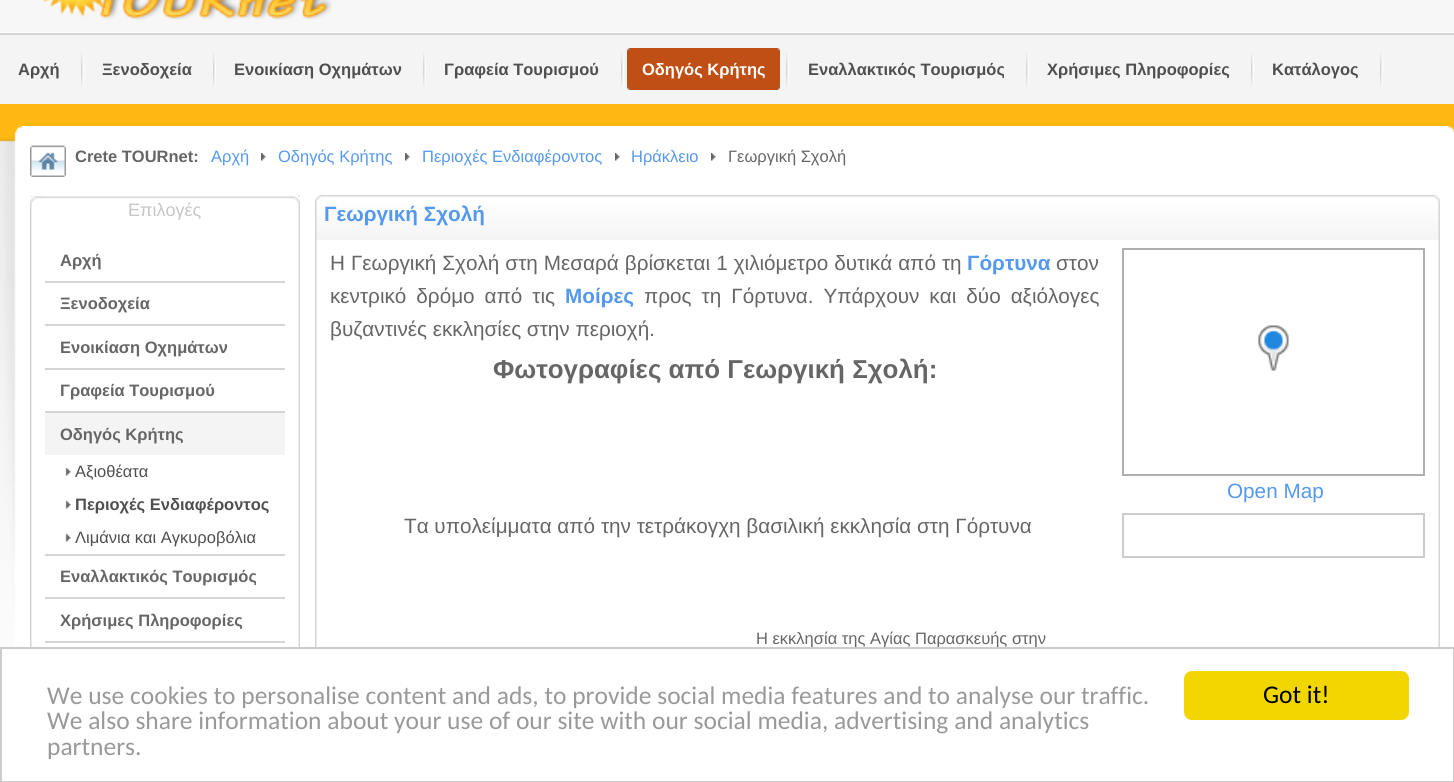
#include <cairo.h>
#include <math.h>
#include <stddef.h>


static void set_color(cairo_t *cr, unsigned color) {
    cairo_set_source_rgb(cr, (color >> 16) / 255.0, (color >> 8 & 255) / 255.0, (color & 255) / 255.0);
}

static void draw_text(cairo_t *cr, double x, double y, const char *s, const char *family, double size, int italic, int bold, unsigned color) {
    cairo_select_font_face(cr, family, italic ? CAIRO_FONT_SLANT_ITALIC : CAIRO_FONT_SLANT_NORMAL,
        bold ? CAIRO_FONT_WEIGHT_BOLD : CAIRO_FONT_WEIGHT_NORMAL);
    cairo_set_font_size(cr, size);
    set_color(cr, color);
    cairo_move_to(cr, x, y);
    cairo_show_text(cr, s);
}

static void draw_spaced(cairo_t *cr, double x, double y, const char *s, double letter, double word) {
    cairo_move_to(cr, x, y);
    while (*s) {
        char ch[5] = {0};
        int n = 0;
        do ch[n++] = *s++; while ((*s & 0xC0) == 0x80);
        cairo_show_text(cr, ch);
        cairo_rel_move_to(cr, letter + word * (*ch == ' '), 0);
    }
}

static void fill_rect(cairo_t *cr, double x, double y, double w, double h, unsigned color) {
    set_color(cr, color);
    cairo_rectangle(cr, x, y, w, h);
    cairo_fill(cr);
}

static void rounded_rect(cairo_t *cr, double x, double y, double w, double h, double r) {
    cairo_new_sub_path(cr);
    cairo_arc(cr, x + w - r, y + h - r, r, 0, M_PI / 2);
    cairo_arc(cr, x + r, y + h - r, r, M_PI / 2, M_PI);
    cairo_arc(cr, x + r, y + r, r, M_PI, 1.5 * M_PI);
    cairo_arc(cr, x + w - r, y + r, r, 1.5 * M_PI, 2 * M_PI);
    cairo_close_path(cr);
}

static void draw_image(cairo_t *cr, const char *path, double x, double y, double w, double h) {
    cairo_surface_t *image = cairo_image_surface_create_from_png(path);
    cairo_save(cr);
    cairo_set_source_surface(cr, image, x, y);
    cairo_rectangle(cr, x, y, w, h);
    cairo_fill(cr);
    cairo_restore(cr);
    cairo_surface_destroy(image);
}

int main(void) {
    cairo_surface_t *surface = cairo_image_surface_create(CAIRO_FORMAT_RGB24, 1454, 782);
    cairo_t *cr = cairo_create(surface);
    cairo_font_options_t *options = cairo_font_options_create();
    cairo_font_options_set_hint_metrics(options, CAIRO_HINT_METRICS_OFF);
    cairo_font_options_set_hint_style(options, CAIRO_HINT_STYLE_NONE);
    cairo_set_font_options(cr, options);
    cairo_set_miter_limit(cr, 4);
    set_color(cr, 0xFFB911);
    cairo_paint(cr);
    fill_rect(cr, 0, 0, 1454, 32, 0xF7F7F7);
    fill_rect(cr, 0, 32, 1454, 1, 0xFFFFFF);
    draw_image(cr, "assets/img1.png", 43, 0, 289, 20);
    fill_rect(cr, 0, 35, 1454, 69, 0xF4F4F4);
    fill_rect(cr, 0, 33, 1454, 2, 0xD5D5D5);
    draw_image(cr, "assets/img2.png", 81, 52, 3, 35);
    draw_text(cr, 18, 75, "Αρχή", "Liberation Sans", 16.5, 0, 1, 0x4F4F4F);
    draw_image(cr, "assets/img2.png", 213, 52, 3, 35);
    draw_text(cr, 102, 75, "Ξενοδοχεία", "Liberation Sans", 16.5, 0, 1, 0x4F4F4F);
    draw_image(cr, "assets/img3.png", 423, 52, 3, 35);
    draw_text(cr, 234, 75, "Ενοικίαση Οχημάτων", "Liberation Sans", 16.5, 0, 1, 0x4F4F4F);
    draw_image(cr, "assets/img2.png", 621, 52, 3, 35);
    draw_text(cr, 444, 75, "Γραφεία Τουρισμού", "Liberation Sans", 16.5, 0, 1, 0x4F4F4F);
    draw_image(cr, "assets/img2.png", 786, 52, 3, 35);
    draw_image(cr, "assets/img4.png", 627, 48, 148, 42);
    draw_image(cr, "assets/img5.png", 775, 48, 5, 42);
    draw_text(cr, 642, 75, "Οδηγός Κρήτης", "Liberation Sans", 16.5, 0, 1, 0xFFFFFF);
    draw_image(cr, "assets/img2.png", 1026, 52, 3, 35);
    draw_text(cr, 808, 75, "Εναλλακτικός Τουρισμός", "Liberation Sans", 16.5, 0, 1, 0x4F4F4F);
    draw_image(cr, "assets/img2.png", 1251, 52, 3, 35);
    draw_text(cr, 1047, 75, "Χρήσιμες Πληροφορίες", "Liberation Sans", 16.5, 0, 1, 0x4F4F4F);
    draw_image(cr, "assets/img2.png", 1380, 52, 3, 35);
    draw_text(cr, 1272, 75, "Κατάλογος", "Liberation Sans", 16.5, 0, 1, 0x4F4F4F);
    draw_image(cr, "assets/img6.png", 0, 126, 1454, 521);
    draw_image(cr, "assets/img7.png", 30, 145, 36, 32);
    draw_text(cr, 75, 162, "Crete TOURnet:", "Liberation Sans", 16.5, 0, 1, 0x666666);
    draw_text(cr, 211, 162, "Αρχή", "Liberation Sans", 16.5, 0, 0, 0x5599EE);
    draw_image(cr, "assets/img8.png", 261, 153, 5, 8);
    draw_text(cr, 278, 162, "Οδηγός Κρήτης", "Liberation Sans", 16.5, 0, 0, 0x5599EE);
    draw_image(cr, "assets/img8.png", 405, 153, 5, 8);
    draw_text(cr, 422, 162, "Περιοχές Ενδιαφέροντος", "Liberation Sans", 16.5, 0, 0, 0x5599EE);
    draw_image(cr, "assets/img9.png", 615, 153, 5, 8);
    draw_text(cr, 631, 162, "Ηράκλειο", "Liberation Sans", 16.5, 0, 0, 0x5599EE);
    draw_image(cr, "assets/img8.png", 711, 153, 5, 8);
    draw_text(cr, 728, 162, "Γεωργική Σχολή", "Liberation Sans", 16.5, 0, 0, 0x666666);
    draw_image(cr, "assets/img10.png", 30, 195, 270, 452);
    draw_image(cr, "assets/img11.png", 30, 196, 15, 451);
    draw_image(cr, "assets/img12.png", 30, 196, 270, 49);
    draw_image(cr, "assets/img13.png", 30, 196, 15, 49);
    draw_text(cr, 128, 216, "Επιλογές", "Liberation Sans", 18, 0, 0, 0xC6C6C6);
    fill_rect(cr, 45, 281, 240, 2, 0xD5D5D5);
    draw_text(cr, 60, 266, "Αρχή", "Liberation Sans", 16.5, 0, 1, 0x666666);
    fill_rect(cr, 45, 324, 240, 2, 0xD5D5D5);
    draw_text(cr, 60, 309, "Ξενοδοχεία", "Liberation Sans", 16.5, 0, 1, 0x666666);
    fill_rect(cr, 45, 368, 240, 2, 0xD5D5D5);
    draw_text(cr, 60, 353, "Ενοικίαση Οχημάτων", "Liberation Sans", 16.5, 0, 1, 0x666666);
    fill_rect(cr, 45, 411, 240, 2, 0xD5D5D5);
    draw_text(cr, 60, 396, "Γραφεία Τουρισμού", "Liberation Sans", 16.5, 0, 1, 0x666666);
    fill_rect(cr, 45, 554, 240, 2, 0xD5D5D5);
    fill_rect(cr, 45, 413, 240, 42, 0xF4F4F4);
    draw_text(cr, 60, 440, "Οδηγός Κρήτης", "Liberation Sans", 16.5, 0, 1, 0x666666);
    draw_image(cr, "assets/img14.png", 65, 467, 6, 9);
    draw_text(cr, 75, 477, "Αξιοθέατα", "Liberation Sans", 16.5, 0, 0, 0x4F4F4F);
    draw_image(cr, "assets/img14.png", 65, 500, 6, 9);
    draw_text(cr, 75, 510, "Περιοχές Ενδιαφέροντος", "Liberation Sans", 16.5, 0, 1, 0x4F4F4F);
    draw_image(cr, "assets/img14.png", 65, 533, 6, 9);
    draw_text(cr, 75, 543, "Λιμάνια και Αγκυροβόλια", "Liberation Sans", 16.5, 0, 0, 0x4F4F4F);
    fill_rect(cr, 45, 597, 240, 2, 0xD5D5D5);
    draw_text(cr, 60, 582, "Εναλλακτικός Τουρισμός", "Liberation Sans", 16.5, 0, 1, 0x666666);
    fill_rect(cr, 45, 641, 240, 2, 0xD5D5D5);
    draw_text(cr, 60, 626, "Χρήσιμες Πληροφορίες", "Liberation Sans", 16.5, 0, 1, 0x666666);
    draw_image(cr, "assets/img15.png", 315, 240, 1125, 407);
    draw_image(cr, "assets/img16.png", 315, 195, 1125, 45);
    draw_text(cr, 324, 221, "Γεωργική Σχολή", "Liberation Sans", 20.7, 0, 1, 0x5599EE);
    cairo_select_font_face(cr, "Liberation Sans", CAIRO_FONT_SLANT_NORMAL, CAIRO_FONT_WEIGHT_NORMAL);
    set_color(cr, 0x666666);
    draw_spaced(cr, 330, 270, "Η Γεωργική Σχολή στη Μεσαρά βρίσκεται 1 χιλιόμετρο δυτικά από τη", 0, 0.25);
    draw_text(cr, 967, 270, "Γόρτυνα", "Liberation Sans", 20.7, 0, 1, 0x5599EE);
    draw_text(cr, 1056, 270, "στον", "Liberation Sans", 20.7, 0, 0, 0x666666);
    draw_spaced(cr, 330, 303, "κεντρικό δρόμο από τις", 0, 4.25);
    draw_text(cr, 565, 303, "Μοίρες", "Liberation Sans", 20.7, 0, 1, 0x5599EE);
    cairo_select_font_face(cr, "Liberation Sans", CAIRO_FONT_SLANT_NORMAL, CAIRO_FONT_WEIGHT_NORMAL);
    set_color(cr, 0x666666);
    draw_spaced(cr, 644, 303, "προς τη Γόρτυνα. Υπάρχουν και δύο αξιόλογες", 0, 4.25);
    draw_text(cr, 330, 336, "βυζαντινές εκκλησίες στην περιοχή.", "Liberation Sans", 20.7, 0, 0, 0x666666);
    cairo_rectangle(cr, 1123, 249, 301, 226);
    set_color(cr, 0xAFAFAF);
    cairo_stroke(cr);
    draw_image(cr, "assets/img17.png", 1258, 325, 31, 46);
    draw_text(cr, 493, 378, "Φωτογραφίες από Γεωργική Σχολή:", "Liberation Sans", 25.9, 0, 1, 0x666666);
    draw_text(cr, 404, 533, "Τα υπολείμματα από την τετράκογχη βασιλική εκκλησία στη Γόρτυνα", "Liberation Sans", 20.7, 0, 0, 0x666666);
    draw_text(cr, 1227, 498, "Open Map", "Liberation Sans", 20.7, 0, 0, 0x5599EE);
    cairo_rectangle(cr, 1123, 514, 301, 43);
    set_color(cr, 0xCCCCCC);
    cairo_stroke(cr);
    draw_text(cr, 756, 644, "Η εκκλησία της Αγίας Παρασκευής στην", "Liberation Sans", 16.5, 0, 0, 0x666666);
    set_color(cr, 0xFFFFFF);
    cairo_rectangle(cr, 1, 648, 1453, 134);
    cairo_fill_preserve(cr);
    set_color(cr, 0xCCCCCC);
    cairo_stroke(cr);
    draw_text(cr, 47, 704, "We use cookies to personalise content and ads, to provide social media features and to analyse our traffic.", "Carlito", 25.5, 0, 0, 0x999999);
    draw_text(cr, 47, 729, "We also share information about your use of our site with our social media, advertising and analytics", "Carlito", 25.5, 0, 0, 0x999999);
    draw_text(cr, 47, 755, "partners.", "Carlito", 25.5, 0, 0, 0x999999);
    set_color(cr, 0xF1D600);
    rounded_rect(cr, 1184, 671, 225, 49, 8);
    cairo_fill(cr);
    draw_text(cr, 1263, 703, "Got it!", "Carlito", 25.5, 0, 0, 0x000000);
    cairo_surface_write_to_png(surface, "output.png");
    cairo_font_options_destroy(options);
    cairo_destroy(cr);
    cairo_surface_destroy(surface);
    return 0;
}
